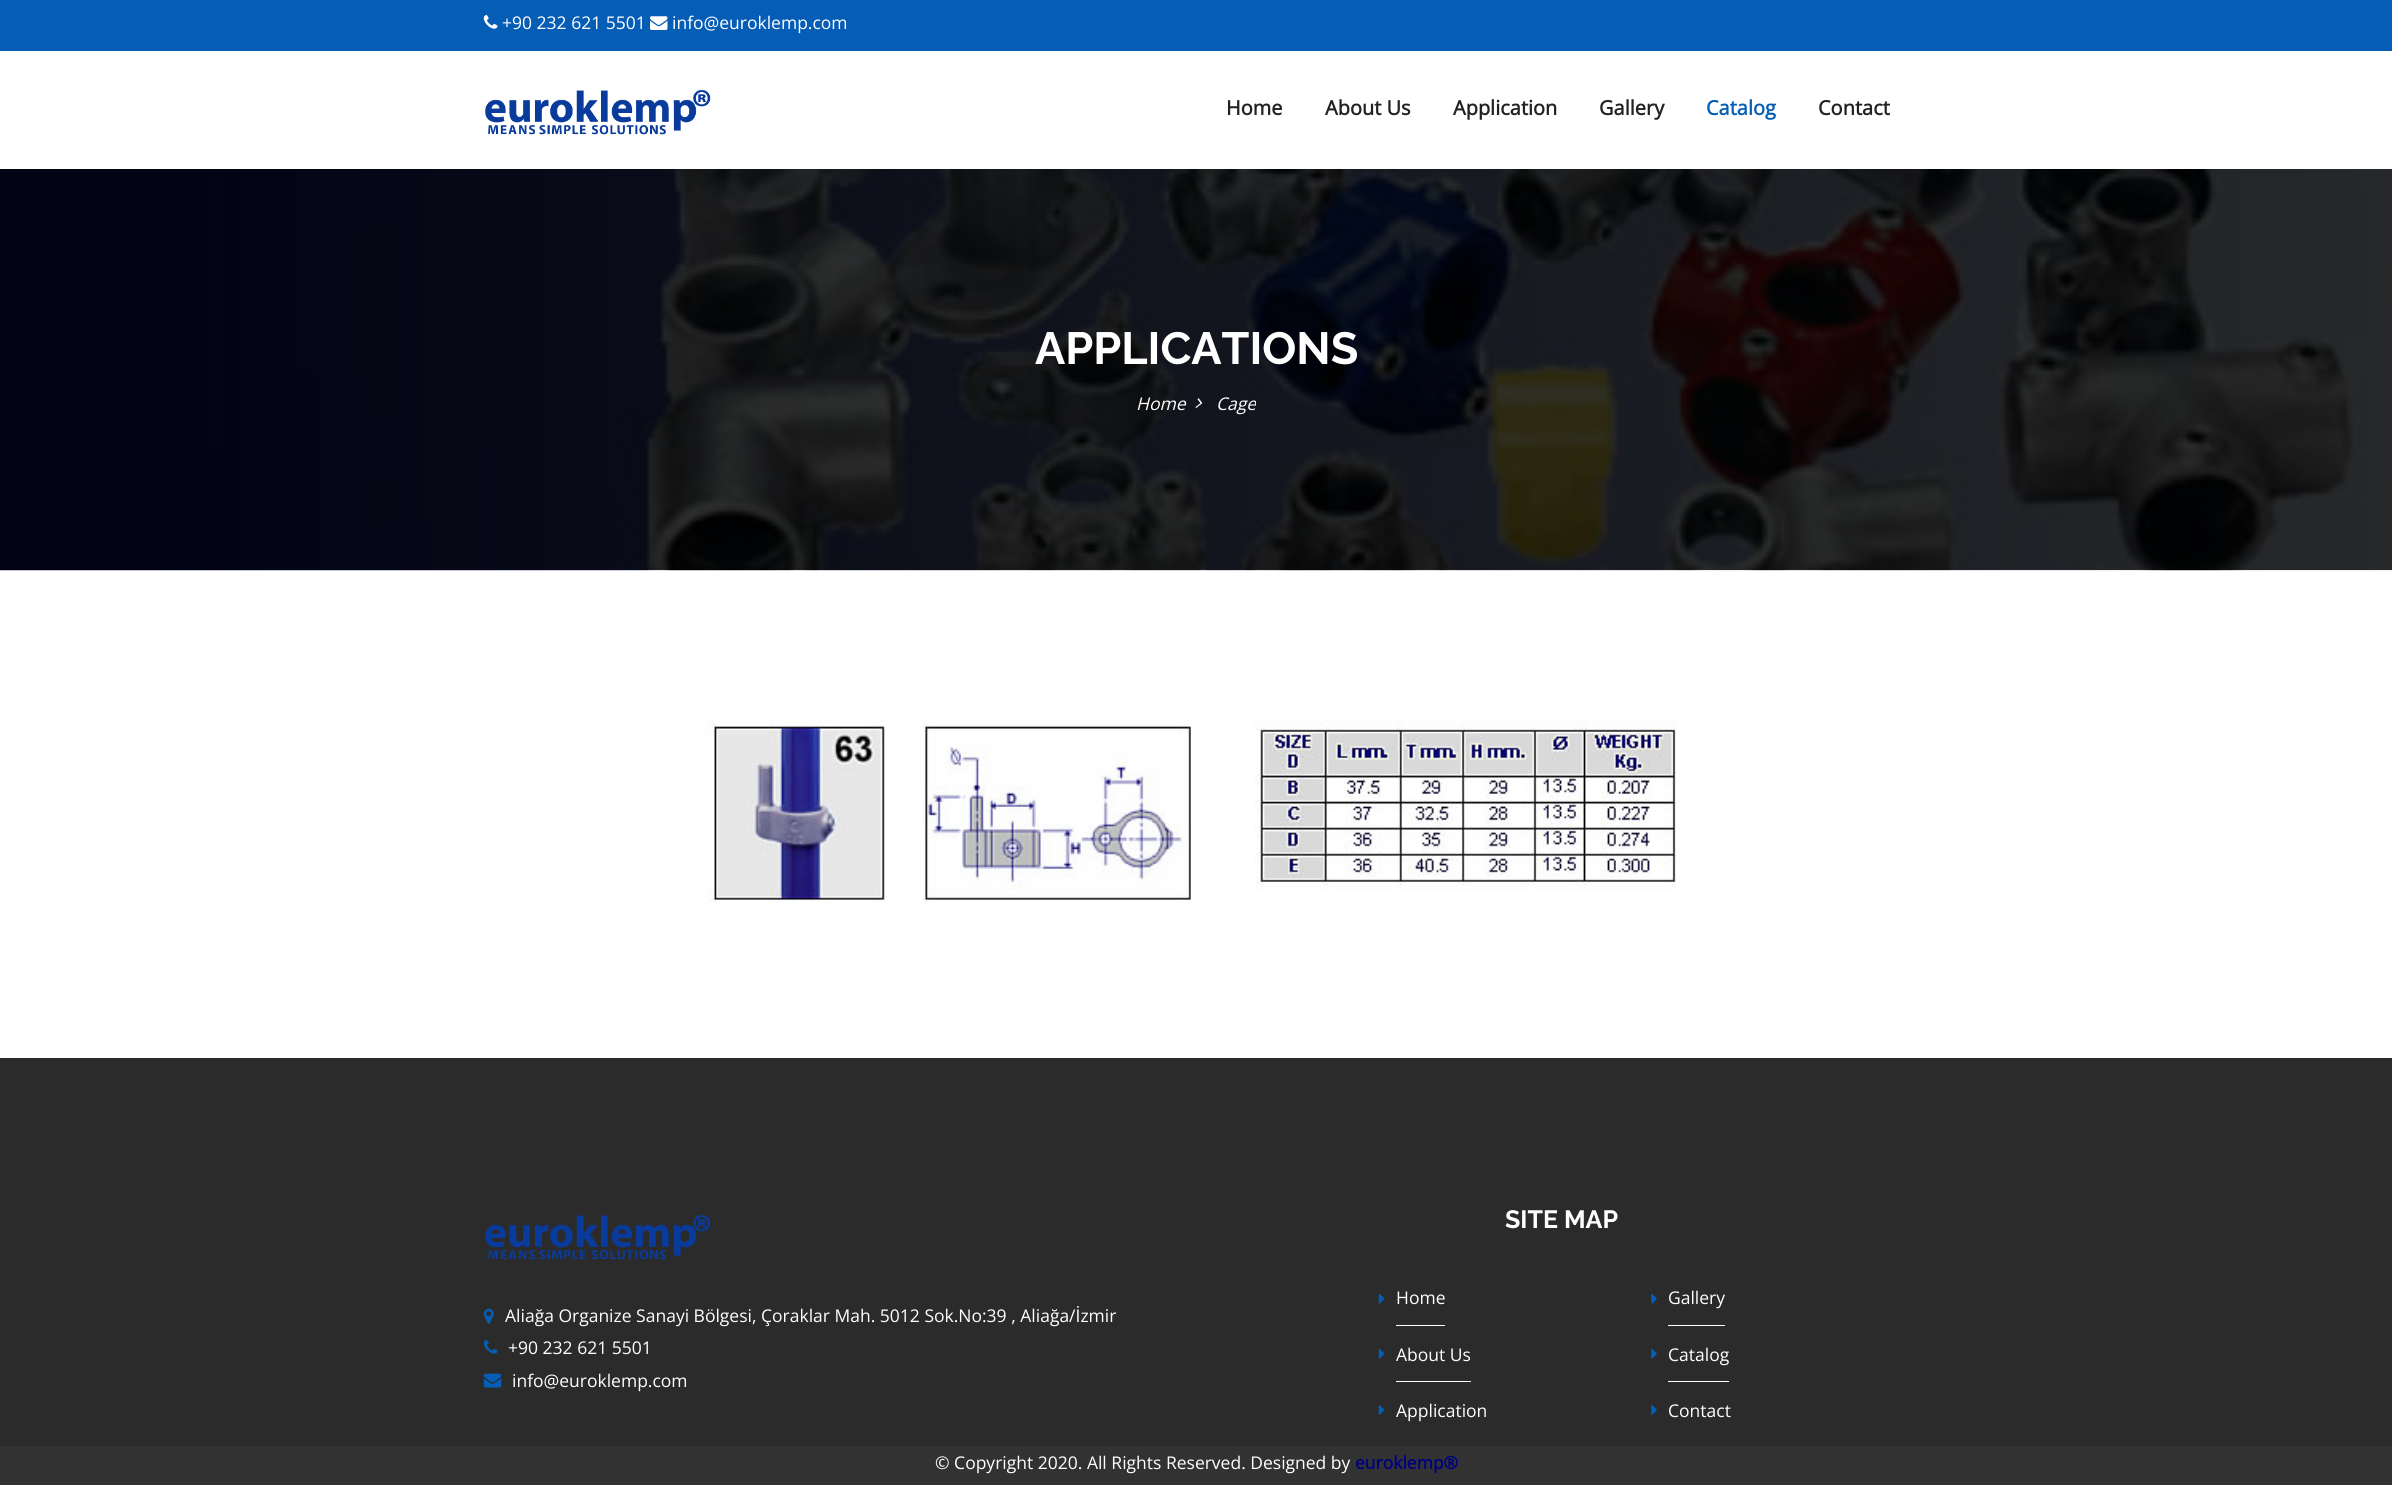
#include <cairo.h>
#include <math.h>
#include <stddef.h>


static void set_color(cairo_t *cr, unsigned color) {
    cairo_set_source_rgb(cr, (color >> 16) / 255.0, (color >> 8 & 255) / 255.0, (color & 255) / 255.0);
}

static void draw_text(cairo_t *cr, double x, double y, const char *s, const char *family, double size, int italic, int bold, unsigned color) {
    cairo_select_font_face(cr, family, italic ? CAIRO_FONT_SLANT_ITALIC : CAIRO_FONT_SLANT_NORMAL,
        bold ? CAIRO_FONT_WEIGHT_BOLD : CAIRO_FONT_WEIGHT_NORMAL);
    cairo_set_font_size(cr, size);
    set_color(cr, color);
    cairo_move_to(cr, x, y);
    cairo_show_text(cr, s);
}

static void fill_rect(cairo_t *cr, double x, double y, double w, double h, unsigned color) {
    set_color(cr, color);
    cairo_rectangle(cr, x, y, w, h);
    cairo_fill(cr);
}

static void draw_image(cairo_t *cr, const char *path, double x, double y, double w, double h) {
    cairo_surface_t *image = cairo_image_surface_create_from_png(path);
    cairo_save(cr);
    cairo_set_source_surface(cr, image, x, y);
    cairo_rectangle(cr, x, y, w, h);
    cairo_fill(cr);
    cairo_restore(cr);
    cairo_surface_destroy(image);
}

int main(void) {
    cairo_surface_t *surface = cairo_image_surface_create(CAIRO_FORMAT_RGB24, 2392, 1485);
    cairo_t *cr = cairo_create(surface);
    cairo_font_options_t *options = cairo_font_options_create();
    cairo_font_options_set_hint_metrics(options, CAIRO_HINT_METRICS_OFF);
    cairo_font_options_set_hint_style(options, CAIRO_HINT_STYLE_NONE);
    cairo_set_font_options(cr, options);
    cairo_set_miter_limit(cr, 4);
    set_color(cr, 0xFFFFFF);
    cairo_paint(cr);
    fill_rect(cr, 0, 0, 2392, 51, 0x055DB6);
    draw_image(cr, "assets/img1.png", 483, 15, 15, 14);
    draw_text(cr, 502, 29, "+90 232 621 5501", "Open Sans", 17.5, 0, 0, 0xFFFFFF);
    draw_image(cr, "assets/img2.png", 650, 16, 18, 14);
    draw_text(cr, 672, 29, "info@euroklemp.com", "Open Sans", 17.5, 0, 0, 0xFFFFFF);
    draw_image(cr, "assets/img3.png", 485, 90, 226, 45);
    draw_text(cr, 1226, 115, "Home", "Open Sans", 20, 0, 1, 0x222222);
    draw_text(cr, 1325, 115, "About Us", "Open Sans", 20, 0, 1, 0x222222);
    draw_text(cr, 1453, 115, "Application", "Open Sans", 20, 0, 1, 0x222222);
    draw_text(cr, 1599, 115, "Gallery", "Open Sans", 20, 0, 1, 0x222222);
    draw_text(cr, 1706, 115, "Catalog", "Open Sans", 20, 0, 1, 0x055DB6);
    draw_text(cr, 1818, 115, "Contact", "Open Sans", 20, 0, 1, 0x222222);
    draw_image(cr, "assets/img4.png", 0, 169, 2392, 402);
    draw_text(cr, 1035, 364, "APPLICATIONS", "Raleway", 45, 0, 1, 0xFFFFFF);
    draw_text(cr, 1136, 410, "Home", "Open Sans", 17.5, 1, 0, 0xFFFFFF);
    draw_image(cr, "assets/img5.png", 1195, 398, 8, 10);
    cairo_save(cr);
    cairo_rectangle(cr, 1136, 388, 120, 32);
    cairo_clip(cr);
    draw_text(cr, 1216, 410, "Cage", "Open Sans", 17.5, 1, 0, 0xFFFFFF);
    cairo_restore(cr);
    draw_image(cr, "assets/img6.png", 705, 720, 971, 183);
    fill_rect(cr, 0, 1058, 2392, 388, 0x2B2B2B);
    draw_image(cr, "assets/img7.png", 485, 1215, 226, 45);
    draw_image(cr, "assets/img8.png", 483, 1308, 11, 16);
    draw_text(cr, 505, 1322, "Aliağa Organize Sanayi Bölgesi, Çoraklar Mah. 5012 Sok.No:39 , Aliağa/İzmir", "Open Sans", 17.5, 0, 0, 0xFFFFFF);
    draw_image(cr, "assets/img9.png", 483, 1340, 15, 14);
    draw_text(cr, 508, 1354, "+90 232 621 5501", "Open Sans", 17.5, 0, 0, 0xFFFFFF);
    draw_image(cr, "assets/img10.png", 483, 1373, 19, 15);
    draw_text(cr, 512, 1387, "info@euroklemp.com", "Open Sans", 17.5, 0, 0, 0xFFFFFF);
    draw_text(cr, 1505, 1228, "SITE MAP", "Raleway", 25, 0, 1, 0xFFFFFF);
    draw_image(cr, "assets/img11.png", 1378, 1293, 7, 11);
    fill_rect(cr, 1396, 1325, 49, 1, 0xFFFFFF);
    draw_text(cr, 1396, 1304, "Home", "Open Sans", 17.5, 0, 0, 0xFFFFFF);
    draw_image(cr, "assets/img11.png", 1378, 1348, 7, 11);
    fill_rect(cr, 1396, 1381, 75, 1, 0xFFFFFF);
    draw_text(cr, 1396, 1361, "About Us", "Open Sans", 17.5, 0, 0, 0xFFFFFF);
    draw_image(cr, "assets/img12.png", 1378, 1405, 7, 10);
    draw_text(cr, 1396, 1417, "Application", "Open Sans", 17.5, 0, 0, 0xFFFFFF);
    draw_image(cr, "assets/img13.png", 1651, 1293, 6, 11);
    fill_rect(cr, 1668, 1325, 57, 1, 0xFFFFFF);
    draw_text(cr, 1668, 1304, "Gallery", "Open Sans", 17.5, 0, 0, 0xFFFFFF);
    draw_image(cr, "assets/img13.png", 1651, 1348, 6, 11);
    fill_rect(cr, 1668, 1381, 61, 1, 0xFFFFFF);
    draw_text(cr, 1668, 1361, "Catalog", "Open Sans", 17.5, 0, 0, 0xFFFFFF);
    draw_image(cr, "assets/img14.png", 1651, 1405, 6, 10);
    draw_text(cr, 1668, 1417, "Contact", "Open Sans", 17.5, 0, 0, 0xFFFFFF);
    fill_rect(cr, 0, 1446, 2392, 39, 0x323232);
    draw_text(cr, 935, 1469, "© Copyright 2020. All Rights Reserved. Designed by", "Open Sans", 17.5, 0, 0, 0xFFFFFF);
    draw_text(cr, 1355, 1469, "euroklemp®", "Open Sans", 17.5, 0, 1, 0x000080);
    cairo_surface_write_to_png(surface, "output.png");
    cairo_font_options_destroy(options);
    cairo_destroy(cr);
    cairo_surface_destroy(surface);
    return 0;
}
